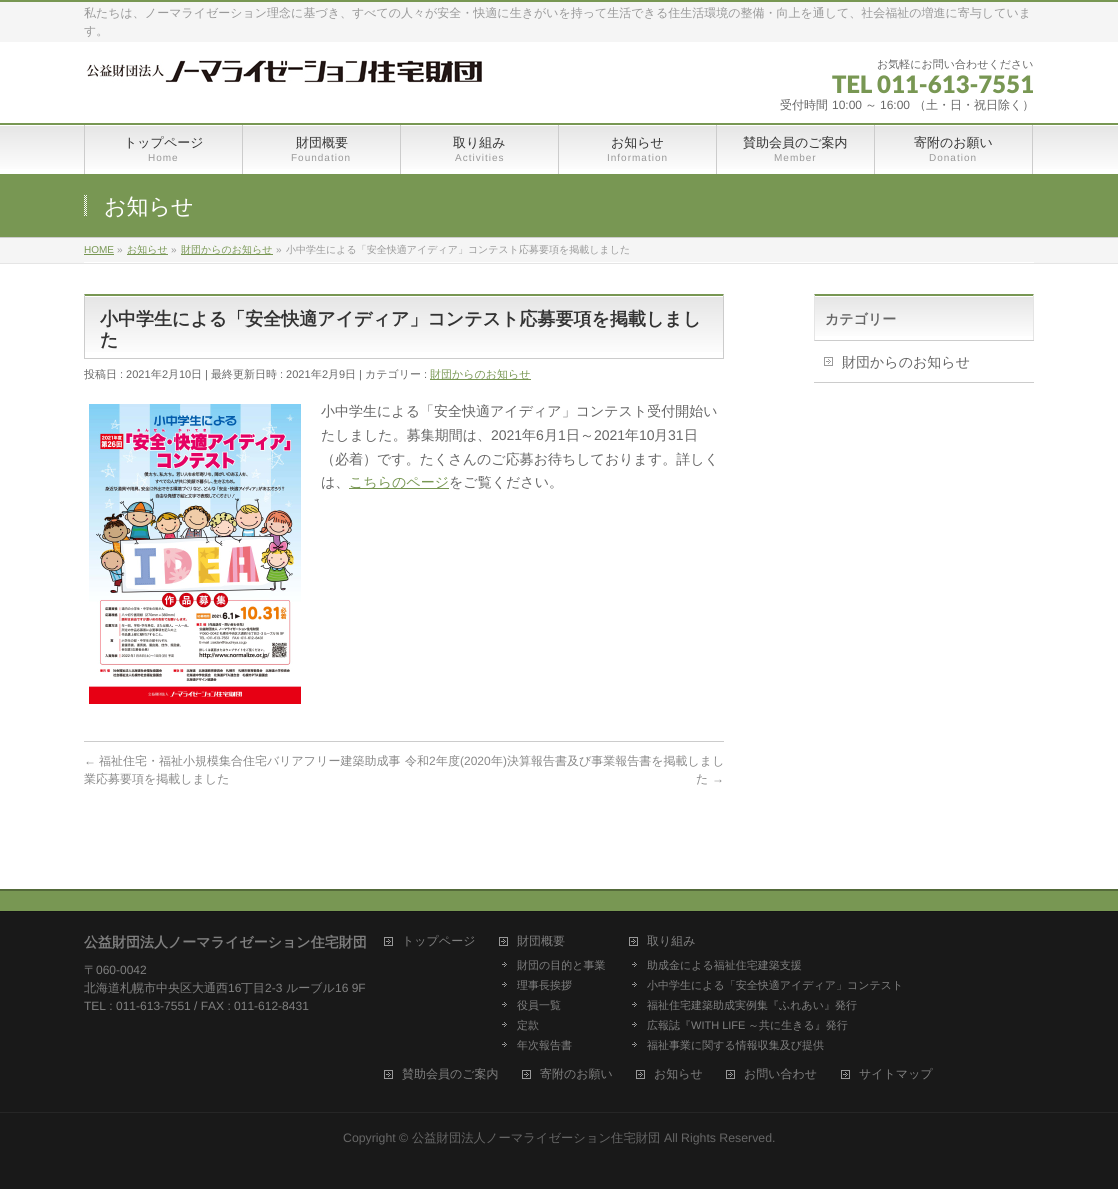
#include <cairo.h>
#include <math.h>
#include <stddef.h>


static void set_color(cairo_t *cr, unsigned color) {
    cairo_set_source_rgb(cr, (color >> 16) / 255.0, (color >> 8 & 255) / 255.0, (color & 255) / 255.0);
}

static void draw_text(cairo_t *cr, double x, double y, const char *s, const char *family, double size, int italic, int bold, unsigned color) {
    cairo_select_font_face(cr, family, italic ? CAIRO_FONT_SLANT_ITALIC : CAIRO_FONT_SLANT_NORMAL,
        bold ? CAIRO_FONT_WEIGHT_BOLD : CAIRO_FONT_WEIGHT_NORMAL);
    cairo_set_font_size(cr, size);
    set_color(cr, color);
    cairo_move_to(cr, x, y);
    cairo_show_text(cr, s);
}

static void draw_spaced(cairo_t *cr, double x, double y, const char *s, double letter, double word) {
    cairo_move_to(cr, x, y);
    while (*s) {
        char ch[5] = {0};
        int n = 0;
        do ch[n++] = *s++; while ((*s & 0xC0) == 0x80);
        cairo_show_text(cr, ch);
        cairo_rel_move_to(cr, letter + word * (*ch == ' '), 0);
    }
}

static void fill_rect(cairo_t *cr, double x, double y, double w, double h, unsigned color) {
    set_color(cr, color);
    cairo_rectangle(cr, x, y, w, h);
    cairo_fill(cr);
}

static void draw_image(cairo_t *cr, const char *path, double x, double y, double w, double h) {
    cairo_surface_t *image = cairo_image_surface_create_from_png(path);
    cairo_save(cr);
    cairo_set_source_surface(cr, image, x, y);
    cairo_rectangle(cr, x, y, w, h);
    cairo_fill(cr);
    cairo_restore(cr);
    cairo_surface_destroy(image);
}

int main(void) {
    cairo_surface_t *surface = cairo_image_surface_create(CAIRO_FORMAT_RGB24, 1118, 1189);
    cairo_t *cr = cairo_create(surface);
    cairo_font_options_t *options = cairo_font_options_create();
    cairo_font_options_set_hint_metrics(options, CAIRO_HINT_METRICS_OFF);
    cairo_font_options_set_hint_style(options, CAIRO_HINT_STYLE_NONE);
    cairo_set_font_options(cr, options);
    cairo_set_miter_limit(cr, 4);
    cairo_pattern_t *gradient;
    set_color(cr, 0xFFFFFF);
    cairo_paint(cr);
    fill_rect(cr, 0, 2, 1118, 40, 0xF5F5F5);
    fill_rect(cr, 0, 0, 1118, 2, 0x789753);
    draw_text(cr, 84, 17, "私たちは、ノーマライゼーション理念に基づき、すべての人々が安全・快適に生きがいを持って生活できる住生活環境の整備・向上を通して、社会福祉の増進に寄与していま", "WenQuanYi Zen Hei Medium", 12, 0, 0, 0x999999);
    draw_text(cr, 84, 35, "す。", "WenQuanYi Zen Hei Medium", 12, 0, 0, 0x999999);
    draw_image(cr, "assets/img1.png", 86, 60, 396, 23);
    draw_text(cr, 877, 68, "お気軽にお問い合わせください", "WenQuanYi Zen Hei Medium", 11, 0, 0, 0x666666);
    draw_text(cr, 832, 93, "TEL 011-613-7551", "Lato Black", 24, 0, 0, 0x789753);
    draw_text(cr, 780, 109, "受付時間", "WenQuanYi Zen Hei Medium", 12, 0, 0, 0x666666);
    draw_text(cr, 832, 109, "10:00", "Liberation Sans", 12, 0, 0, 0x666666);
    draw_text(cr, 865, 109, "～", "WenQuanYi Zen Hei Medium", 12, 0, 0, 0x666666);
    draw_text(cr, 880, 109, "16:00", "Liberation Sans", 12, 0, 0, 0x666666);
    draw_text(cr, 914, 109, "（土・日・祝日除く）", "WenQuanYi Zen Hei Medium", 12, 0, 0, 0x666666);
    gradient = cairo_pattern_create_linear(559, 125, 559, 174);
    cairo_pattern_add_color_stop_rgba(gradient, 0, 0.898, 0.898, 0.898, 1);
    cairo_pattern_add_color_stop_rgba(gradient, 1, 1, 1, 1, 1);
    cairo_set_source(cr, gradient);
    cairo_pattern_destroy(gradient);
    cairo_rectangle(cr, 0, 126, 1118, 43);
    cairo_fill(cr);
    fill_rect(cr, 0, 123, 1118, 2, 0x789753);
    fill_rect(cr, 84, 125, 1, 49, 0xCCCCCC);
    fill_rect(cr, 242, 125, 1, 49, 0xCCCCCC);
    draw_text(cr, 124, 147, "トップページ", "WenQuanYi Zen Hei Medium", 13, 0, 0, 0x333333);
    cairo_select_font_face(cr, "Liberation Sans", CAIRO_FONT_SLANT_NORMAL, CAIRO_FONT_WEIGHT_NORMAL);
    cairo_set_font_size(cr, 10);
    set_color(cr, 0x999999);
    draw_spaced(cr, 148, 161, "Home", 1, 0);
    fill_rect(cr, 400, 125, 1, 49, 0xCCCCCC);
    draw_text(cr, 296, 147, "財団概要", "WenQuanYi Zen Hei Medium", 13, 0, 0, 0x333333);
    cairo_select_font_face(cr, "Liberation Sans", CAIRO_FONT_SLANT_NORMAL, CAIRO_FONT_WEIGHT_NORMAL);
    cairo_set_font_size(cr, 10);
    set_color(cr, 0x999999);
    draw_spaced(cr, 291, 161, "Foundation", 1, 0);
    fill_rect(cr, 558, 125, 1, 49, 0xCCCCCC);
    draw_text(cr, 453, 147, "取り組み", "WenQuanYi Zen Hei Medium", 13, 0, 0, 0x333333);
    cairo_select_font_face(cr, "Liberation Sans", CAIRO_FONT_SLANT_NORMAL, CAIRO_FONT_WEIGHT_NORMAL);
    cairo_set_font_size(cr, 10);
    set_color(cr, 0x999999);
    draw_spaced(cr, 455, 161, "Activities", 1, 0);
    fill_rect(cr, 716, 125, 1, 49, 0xCCCCCC);
    draw_text(cr, 611, 147, "お知らせ", "WenQuanYi Zen Hei Medium", 13, 0, 0, 0x333333);
    cairo_select_font_face(cr, "Liberation Sans", CAIRO_FONT_SLANT_NORMAL, CAIRO_FONT_WEIGHT_NORMAL);
    cairo_set_font_size(cr, 10);
    set_color(cr, 0x999999);
    draw_spaced(cr, 607, 161, "Information", 1, 0);
    fill_rect(cr, 874, 125, 1, 49, 0xCCCCCC);
    draw_text(cr, 743, 147, "賛助会員のご案内", "WenQuanYi Zen Hei Medium", 13, 0, 0, 0x333333);
    cairo_select_font_face(cr, "Liberation Sans", CAIRO_FONT_SLANT_NORMAL, CAIRO_FONT_WEIGHT_NORMAL);
    cairo_set_font_size(cr, 10);
    set_color(cr, 0x999999);
    draw_spaced(cr, 774, 161, "Member", 1, 0);
    fill_rect(cr, 1032, 125, 1, 49, 0xCCCCCC);
    draw_text(cr, 914, 147, "寄附のお願い", "WenQuanYi Zen Hei Medium", 13, 0, 0, 0x333333);
    cairo_select_font_face(cr, "Liberation Sans", CAIRO_FONT_SLANT_NORMAL, CAIRO_FONT_WEIGHT_NORMAL);
    cairo_set_font_size(cr, 10);
    set_color(cr, 0x999999);
    draw_spaced(cr, 929, 161, "Donation", 1, 0);
    fill_rect(cr, 0, 174, 1118, 63, 0x789753);
    fill_rect(cr, 0, 237, 1118, 1, 0xCCCCCC);
    draw_image(cr, "assets/img2.png", 84, 195, 3, 21);
    draw_text(cr, 104, 214, "お知らせ", "WenQuanYi Zen Hei Medium", 22, 0, 0, 0xFFFFFF);
    fill_rect(cr, 0, 238, 1118, 25, 0xF5F5F5);
    fill_rect(cr, 0, 263, 1118, 1, 0xE5E5E5);
    fill_rect(cr, 84, 262, 950, 1, 0xFFFFFF);
    draw_text(cr, 84, 253, "HOME", "Liberation Sans", 10, 0, 0, 0x789753);
    fill_rect(cr, 84, 254, 30, 1, 0x789753);
    draw_text(cr, 117, 253, "»", "Liberation Sans", 10, 0, 0, 0x999999);
    fill_rect(cr, 127, 254, 41, 1, 0x789753);
    draw_text(cr, 127, 253, "お知らせ", "WenQuanYi Zen Hei Medium", 10, 0, 0, 0x789753);
    draw_text(cr, 171, 253, "»", "Liberation Sans", 10, 0, 0, 0x999999);
    fill_rect(cr, 181, 254, 92, 1, 0x789753);
    draw_text(cr, 181, 253, "財団からのお知らせ", "WenQuanYi Zen Hei Medium", 10, 0, 0, 0x789753);
    draw_text(cr, 276, 253, "»", "Liberation Sans", 10, 0, 0, 0x999999);
    draw_text(cr, 286, 253, "小中学生による「安全快適アイディア」コンテスト応募要項を掲載しました", "WenQuanYi Zen Hei Medium", 10, 0, 0, 0x999999);
    gradient = cairo_pattern_create_linear(85, 296, 85, 358);
    cairo_pattern_add_color_stop_rgba(gradient, 0, 0.898, 0.898, 0.898, 1);
    cairo_pattern_add_color_stop_rgba(gradient, 1, 1, 1, 1, 1);
    cairo_set_source(cr, gradient);
    cairo_pattern_destroy(gradient);
    cairo_rectangle(cr, 85, 297, 638, 55);
    cairo_fill(cr);
    set_color(cr, 0x789753);
    cairo_new_path(cr);
    cairo_move_to(cr, 84, 294);
    cairo_line_to(cr, 724, 294);
    cairo_line_to(cr, 723, 296);
    cairo_line_to(cr, 85, 296);
    cairo_close_path(cr);
    cairo_fill(cr);
    set_color(cr, 0xCCCCCC);
    cairo_new_path(cr);
    cairo_move_to(cr, 724, 294);
    cairo_line_to(cr, 724, 359);
    cairo_line_to(cr, 723, 358);
    cairo_line_to(cr, 723, 296);
    cairo_close_path(cr);
    cairo_fill(cr);
    fill_rect(cr, 84, 358, 640, 1, 0xCCCCCC);
    cairo_new_path(cr);
    cairo_move_to(cr, 84, 359);
    cairo_line_to(cr, 84, 294);
    cairo_line_to(cr, 85, 296);
    cairo_line_to(cr, 85, 358);
    cairo_close_path(cr);
    cairo_fill(cr);
    draw_text(cr, 100, 325, "小中学生による「安全快適アイディア」コンテスト応募要項を掲載しまし", "WenQuanYi Zen Hei", 18, 0, 1, 0x333333);
    draw_text(cr, 100, 346, "た", "WenQuanYi Zen Hei", 18, 0, 1, 0x333333);
    draw_text(cr, 84, 378, "投稿日", "WenQuanYi Zen Hei Medium", 11, 0, 0, 0x666666);
    draw_text(cr, 120, 378, ": 2021", "Liberation Sans", 11, 0, 0, 0x666666);
    draw_text(cr, 151, 378, "年", "WenQuanYi Zen Hei Medium", 11, 0, 0, 0x666666);
    draw_text(cr, 162, 378, "2", "Liberation Sans", 11, 0, 0, 0x666666);
    draw_text(cr, 168, 378, "月", "WenQuanYi Zen Hei Medium", 11, 0, 0, 0x666666);
    draw_text(cr, 179, 378, "10", "Liberation Sans", 11, 0, 0, 0x666666);
    draw_text(cr, 191, 378, "日", "WenQuanYi Zen Hei Medium", 11, 0, 0, 0x666666);
    draw_text(cr, 205, 378, "|", "Liberation Sans", 11, 0, 0, 0x666666);
    draw_text(cr, 211, 378, "最終更新日時", "WenQuanYi Zen Hei Medium", 11, 0, 0, 0x666666);
    draw_text(cr, 280, 378, ": 2021", "Liberation Sans", 11, 0, 0, 0x666666);
    draw_text(cr, 311, 378, "年", "WenQuanYi Zen Hei Medium", 11, 0, 0, 0x666666);
    draw_text(cr, 322, 378, "2", "Liberation Sans", 11, 0, 0, 0x666666);
    draw_text(cr, 328, 378, "月", "WenQuanYi Zen Hei Medium", 11, 0, 0, 0x666666);
    draw_text(cr, 339, 378, "9", "Liberation Sans", 11, 0, 0, 0x666666);
    draw_text(cr, 345, 378, "日", "WenQuanYi Zen Hei Medium", 11, 0, 0, 0x666666);
    draw_text(cr, 359, 378, "|", "Liberation Sans", 11, 0, 0, 0x666666);
    draw_text(cr, 365, 378, "カテゴリー", "WenQuanYi Zen Hei Medium", 11, 0, 0, 0x666666);
    draw_text(cr, 424, 378, ":", "Liberation Sans", 11, 0, 0, 0x666666);
    fill_rect(cr, 430, 379, 101, 1, 0x789753);
    draw_text(cr, 430, 378, "財団からのお知らせ", "WenQuanYi Zen Hei Medium", 11, 0, 0, 0x789753);
    draw_image(cr, "assets/img3.png", 89, 404, 212, 300);
    draw_text(cr, 321, 416, "小中学生による「安全快適アイディア」コンテスト受付開始い", "WenQuanYi Zen Hei Medium", 14, 0, 0, 0x666666);
    draw_text(cr, 321, 440, "たしました。募集期間は、", "WenQuanYi Zen Hei Medium", 14, 0, 0, 0x666666);
    draw_text(cr, 491, 440, "2021", "Liberation Sans", 14, 0, 0, 0x666666);
    draw_text(cr, 522, 440, "年", "WenQuanYi Zen Hei Medium", 14, 0, 0, 0x666666);
    draw_text(cr, 536, 440, "6", "Liberation Sans", 14, 0, 0, 0x666666);
    draw_text(cr, 544, 440, "月", "WenQuanYi Zen Hei Medium", 14, 0, 0, 0x666666);
    draw_text(cr, 558, 440, "1", "Liberation Sans", 14, 0, 0, 0x666666);
    draw_text(cr, 566, 440, "日～", "WenQuanYi Zen Hei Medium", 14, 0, 0, 0x666666);
    draw_text(cr, 594, 440, "2021", "Liberation Sans", 14, 0, 0, 0x666666);
    draw_text(cr, 625, 440, "年", "WenQuanYi Zen Hei Medium", 14, 0, 0, 0x666666);
    draw_text(cr, 639, 440, "10", "Liberation Sans", 14, 0, 0, 0x666666);
    draw_text(cr, 654, 440, "月", "WenQuanYi Zen Hei Medium", 14, 0, 0, 0x666666);
    draw_text(cr, 668, 440, "31", "Liberation Sans", 14, 0, 0, 0x666666);
    draw_text(cr, 684, 440, "日", "WenQuanYi Zen Hei Medium", 14, 0, 0, 0x666666);
    draw_text(cr, 321, 464, "（必着）です。たくさんのご応募お待ちしております。詳しく", "WenQuanYi Zen Hei Medium", 14, 0, 0, 0x666666);
    draw_text(cr, 321, 487, "は、", "WenQuanYi Zen Hei Medium", 14, 0, 0, 0x666666);
    fill_rect(cr, 349, 488, 100, 1, 0x789753);
    draw_text(cr, 349, 487, "こちらのページ", "WenQuanYi Zen Hei Medium", 14, 0, 0, 0x789753);
    draw_text(cr, 449, 487, "をご覧ください。", "WenQuanYi Zen Hei Medium", 14, 0, 0, 0x666666);
    fill_rect(cr, 84, 741, 640, 1, 0xCCCCCC);
    draw_text(cr, 84, 765, "←", "Liberation Sans", 12, 0, 0, 0x888888);
    draw_text(cr, 99, 765, "福祉住宅・福祉小規模集合住宅バリアフリー建築助成事", "WenQuanYi Zen Hei Medium", 12, 0, 0, 0x888888);
    draw_text(cr, 84, 783, "業応募要項を掲載しました", "WenQuanYi Zen Hei Medium", 12, 0, 0, 0x888888);
    draw_text(cr, 405, 765, "令和", "WenQuanYi Zen Hei Medium", 12, 0, 0, 0x888888);
    draw_text(cr, 429, 765, "2", "Liberation Sans", 12, 0, 0, 0x888888);
    draw_text(cr, 436, 765, "年度", "WenQuanYi Zen Hei Medium", 12, 0, 0, 0x888888);
    draw_text(cr, 460, 765, "(2020", "Liberation Sans", 12, 0, 0, 0x888888);
    draw_text(cr, 491, 765, "年", "WenQuanYi Zen Hei Medium", 12, 0, 0, 0x888888);
    draw_text(cr, 503, 765, ")", "Liberation Sans", 12, 0, 0, 0x888888);
    draw_text(cr, 507, 765, "決算報告書及び事業報告書を掲載しまし", "WenQuanYi Zen Hei Medium", 12, 0, 0, 0x888888);
    draw_text(cr, 696, 783, "た", "WenQuanYi Zen Hei Medium", 12, 0, 0, 0x888888);
    draw_text(cr, 712, 783, "→", "Liberation Sans", 12, 0, 0, 0x888888);
    gradient = cairo_pattern_create_linear(815, 296, 815, 340);
    cairo_pattern_add_color_stop_rgba(gradient, 0, 0.898, 0.898, 0.898, 1);
    cairo_pattern_add_color_stop_rgba(gradient, 1, 1, 1, 1, 1);
    cairo_set_source(cr, gradient);
    cairo_pattern_destroy(gradient);
    cairo_rectangle(cr, 815, 297, 218, 39);
    cairo_fill(cr);
    set_color(cr, 0x789753);
    cairo_new_path(cr);
    cairo_move_to(cr, 814, 294);
    cairo_line_to(cr, 1034, 294);
    cairo_line_to(cr, 1033, 296);
    cairo_line_to(cr, 815, 296);
    cairo_close_path(cr);
    cairo_fill(cr);
    set_color(cr, 0xE5E5E5);
    cairo_new_path(cr);
    cairo_move_to(cr, 1034, 294);
    cairo_line_to(cr, 1034, 341);
    cairo_line_to(cr, 1033, 340);
    cairo_line_to(cr, 1033, 296);
    cairo_close_path(cr);
    cairo_fill(cr);
    fill_rect(cr, 814, 340, 220, 1, 0xCCCCCC);
    set_color(cr, 0xE5E5E5);
    cairo_new_path(cr);
    cairo_move_to(cr, 814, 341);
    cairo_line_to(cr, 814, 294);
    cairo_line_to(cr, 815, 296);
    cairo_line_to(cr, 815, 340);
    cairo_close_path(cr);
    cairo_fill(cr);
    draw_text(cr, 825, 324, "カテゴリー", "WenQuanYi Zen Hei", 14, 0, 1, 0x666666);
    fill_rect(cr, 814, 382, 220, 1, 0xCCCCCC);
    draw_image(cr, "assets/img4.png", 824, 357, 9, 9);
    draw_text(cr, 842, 367, "財団からのお知らせ", "WenQuanYi Zen Hei Medium", 14, 0, 0, 0x666666);
    fill_rect(cr, 0, 891, 1118, 20, 0x789753);
    fill_rect(cr, 0, 889, 1118, 2, 0x546A3A);
    fill_rect(cr, 0, 912, 1118, 200, 0x191919);
    fill_rect(cr, 0, 911, 1118, 1, 0x151515);
    draw_text(cr, 84, 947, "公益財団法人ノーマライゼーション住宅財団", "WenQuanYi Zen Hei", 14, 0, 1, 0x808080);
    draw_text(cr, 84, 974, "〒", "WenQuanYi Zen Hei Medium", 12, 0, 0, 0x808080);
    draw_text(cr, 96, 974, "060-0042", "Liberation Sans", 12, 0, 0, 0x808080);
    draw_text(cr, 84, 992, "北海道札幌市中央区大通西", "WenQuanYi Zen Hei Medium", 12, 0, 0, 0x808080);
    draw_text(cr, 228, 992, "16", "Liberation Sans", 12, 0, 0, 0x808080);
    draw_text(cr, 241, 992, "丁目", "WenQuanYi Zen Hei Medium", 12, 0, 0, 0x808080);
    draw_text(cr, 265, 992, "2-3", "Liberation Sans", 12, 0, 0, 0x808080);
    draw_text(cr, 286, 992, "ルーブル", "WenQuanYi Zen Hei Medium", 12, 0, 0, 0x808080);
    draw_text(cr, 335, 992, "16 9F", "Liberation Sans", 12, 0, 0, 0x808080);
    draw_text(cr, 84, 1010, "TEL : 011-613-7551 / FAX : 011-612-8431", "Liberation Sans", 12, 0, 0, 0x808080);
    draw_image(cr, "assets/img5.png", 384, 937, 9, 9);
    draw_text(cr, 402, 945, "トップページ", "WenQuanYi Zen Hei Medium", 12, 0, 0, 0x808080);
    draw_image(cr, "assets/img5.png", 499, 937, 9, 9);
    draw_text(cr, 517, 945, "財団概要", "WenQuanYi Zen Hei Medium", 12, 0, 0, 0x808080);
    draw_image(cr, "assets/img6.png", 502, 962, 5, 5);
    draw_text(cr, 517, 969, "財団の目的と事業", "WenQuanYi Zen Hei Medium", 11, 0, 0, 0x808080);
    draw_image(cr, "assets/img6.png", 502, 982, 5, 5);
    draw_text(cr, 517, 989, "理事長挨拶", "WenQuanYi Zen Hei Medium", 11, 0, 0, 0x808080);
    draw_image(cr, "assets/img6.png", 502, 1002, 5, 5);
    draw_text(cr, 517, 1009, "役員一覧", "WenQuanYi Zen Hei Medium", 11, 0, 0, 0x808080);
    draw_image(cr, "assets/img6.png", 502, 1022, 5, 5);
    draw_text(cr, 517, 1029, "定款", "WenQuanYi Zen Hei Medium", 11, 0, 0, 0x808080);
    draw_image(cr, "assets/img6.png", 502, 1042, 5, 5);
    draw_text(cr, 517, 1049, "年次報告書", "WenQuanYi Zen Hei Medium", 11, 0, 0, 0x808080);
    draw_image(cr, "assets/img5.png", 629, 937, 9, 9);
    draw_text(cr, 647, 945, "取り組み", "WenQuanYi Zen Hei Medium", 12, 0, 0, 0x808080);
    draw_image(cr, "assets/img6.png", 632, 962, 5, 5);
    draw_text(cr, 647, 969, "助成金による福祉住宅建築支援", "WenQuanYi Zen Hei Medium", 11, 0, 0, 0x808080);
    draw_image(cr, "assets/img6.png", 632, 982, 5, 5);
    draw_text(cr, 647, 989, "小中学生による「安全快適アイディア」コンテスト", "WenQuanYi Zen Hei Medium", 11, 0, 0, 0x808080);
    draw_image(cr, "assets/img6.png", 632, 1002, 5, 5);
    draw_text(cr, 647, 1009, "福祉住宅建築助成実例集『ふれあい』発行", "WenQuanYi Zen Hei Medium", 11, 0, 0, 0x808080);
    draw_image(cr, "assets/img6.png", 632, 1022, 5, 5);
    draw_text(cr, 647, 1029, "広報誌『", "WenQuanYi Zen Hei Medium", 11, 0, 0, 0x808080);
    draw_text(cr, 691, 1029, "WITH LIFE", "Liberation Sans", 11, 0, 0, 0x808080);
    draw_text(cr, 748, 1029, "～共に生きる』発行", "WenQuanYi Zen Hei Medium", 11, 0, 0, 0x808080);
    draw_image(cr, "assets/img6.png", 632, 1042, 5, 5);
    draw_text(cr, 647, 1049, "福祉事業に関する情報収集及び提供", "WenQuanYi Zen Hei Medium", 11, 0, 0, 0x808080);
    draw_image(cr, "assets/img5.png", 384, 1070, 9, 9);
    draw_text(cr, 402, 1078, "賛助会員のご案内", "WenQuanYi Zen Hei Medium", 12, 0, 0, 0x808080);
    draw_image(cr, "assets/img5.png", 522, 1070, 9, 9);
    draw_text(cr, 540, 1078, "寄附のお願い", "WenQuanYi Zen Hei Medium", 12, 0, 0, 0x808080);
    draw_image(cr, "assets/img5.png", 636, 1070, 9, 9);
    draw_text(cr, 654, 1078, "お知らせ", "WenQuanYi Zen Hei Medium", 12, 0, 0, 0x808080);
    draw_image(cr, "assets/img5.png", 726, 1070, 9, 9);
    draw_text(cr, 744, 1078, "お問い合わせ", "WenQuanYi Zen Hei Medium", 12, 0, 0, 0x808080);
    draw_image(cr, "assets/img5.png", 841, 1070, 9, 9);
    draw_text(cr, 859, 1078, "サイトマップ", "WenQuanYi Zen Hei Medium", 12, 0, 0, 0x808080);
    fill_rect(cr, 0, 1113, 1118, 76, 0x191919);
    fill_rect(cr, 0, 1112, 1118, 1, 0x262626);
    draw_text(cr, 343, 1142, "Copyright ©", "Liberation Sans", 12.3, 0, 0, 0x666666);
    draw_text(cr, 412, 1142, "公益財団法人ノーマライゼーション住宅財団", "WenQuanYi Zen Hei Medium", 12.3, 0, 0, 0x666666);
    draw_text(cr, 664, 1142, "All Rights Reserved.", "Liberation Sans", 12.3, 0, 0, 0x666666);
    cairo_surface_write_to_png(surface, "output.png");
    cairo_font_options_destroy(options);
    cairo_destroy(cr);
    cairo_surface_destroy(surface);
    return 0;
}
